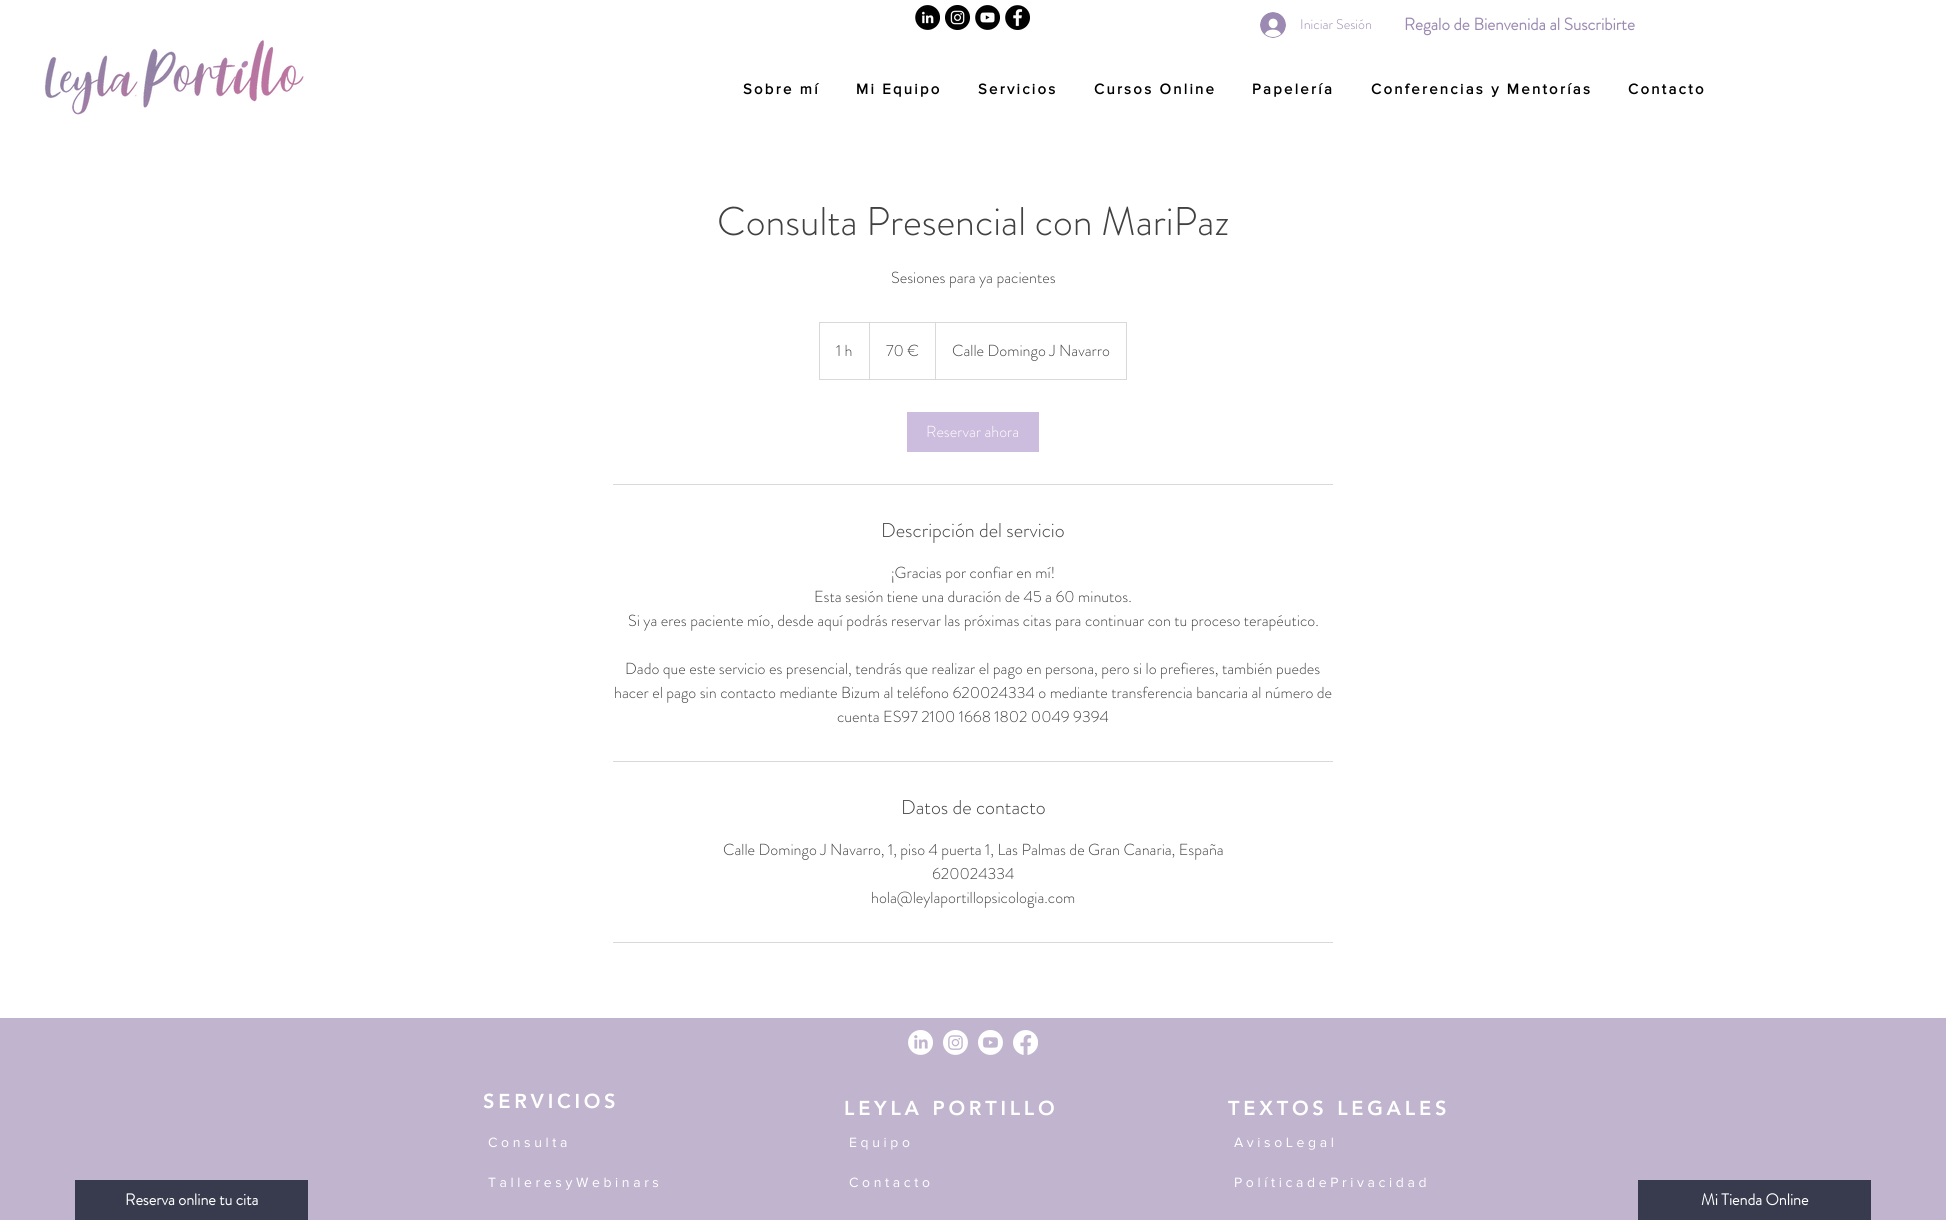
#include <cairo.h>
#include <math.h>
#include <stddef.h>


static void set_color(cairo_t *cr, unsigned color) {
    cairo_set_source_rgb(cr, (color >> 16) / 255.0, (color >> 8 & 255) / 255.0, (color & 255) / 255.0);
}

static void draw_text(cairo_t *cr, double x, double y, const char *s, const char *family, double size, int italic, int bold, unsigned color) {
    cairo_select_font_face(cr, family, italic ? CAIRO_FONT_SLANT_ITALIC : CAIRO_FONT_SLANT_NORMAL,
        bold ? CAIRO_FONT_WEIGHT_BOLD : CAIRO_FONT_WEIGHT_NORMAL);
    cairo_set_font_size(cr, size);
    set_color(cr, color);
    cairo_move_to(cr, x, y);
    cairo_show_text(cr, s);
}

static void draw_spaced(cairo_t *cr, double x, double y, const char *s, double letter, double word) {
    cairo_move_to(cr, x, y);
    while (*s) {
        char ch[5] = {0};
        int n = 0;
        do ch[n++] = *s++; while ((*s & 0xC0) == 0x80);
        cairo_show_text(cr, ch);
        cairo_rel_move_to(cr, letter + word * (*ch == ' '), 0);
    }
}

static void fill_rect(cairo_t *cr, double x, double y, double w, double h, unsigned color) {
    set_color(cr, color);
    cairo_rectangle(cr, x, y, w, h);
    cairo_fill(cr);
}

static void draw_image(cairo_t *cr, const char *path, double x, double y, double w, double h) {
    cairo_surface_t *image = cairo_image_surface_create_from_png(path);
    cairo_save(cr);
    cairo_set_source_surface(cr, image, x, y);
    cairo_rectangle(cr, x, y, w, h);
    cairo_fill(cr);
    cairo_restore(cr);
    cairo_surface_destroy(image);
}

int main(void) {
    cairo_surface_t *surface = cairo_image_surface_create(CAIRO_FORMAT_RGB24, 1946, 1220);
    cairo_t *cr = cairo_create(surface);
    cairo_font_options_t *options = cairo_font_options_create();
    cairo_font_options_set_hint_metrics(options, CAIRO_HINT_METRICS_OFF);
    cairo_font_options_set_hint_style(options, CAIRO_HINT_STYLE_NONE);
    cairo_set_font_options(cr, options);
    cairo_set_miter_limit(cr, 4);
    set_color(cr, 0xFFFFFF);
    cairo_paint(cr);
    draw_image(cr, "assets/img1.png", 44, 40, 260, 75);
    draw_image(cr, "assets/img2.png", 915, 5, 25, 25);
    draw_image(cr, "assets/img3.png", 945, 5, 25, 25);
    draw_image(cr, "assets/img4.png", 975, 5, 25, 25);
    draw_image(cr, "assets/img5.png", 1005, 5, 25, 25);
    draw_image(cr, "assets/img6.png", 1260, 12, 26, 26);
    draw_text(cr, 1300, 29, "Iniciar Sesión", "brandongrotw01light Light", 14, 0, 0, 0x9C8AB2);
    draw_text(cr, 1404, 30, "Regalo de Bienvenida al Suscribirte", "brandongrotw01light", 17, 0, 1, 0x9C8AB2);
    cairo_select_font_face(cr, "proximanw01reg", CAIRO_FONT_SLANT_NORMAL, CAIRO_FONT_WEIGHT_BOLD);
    cairo_set_font_size(cr, 15);
    set_color(cr, 0x000000);
    draw_spaced(cr, 743, 94, "Sobre mí", 2.25, 0);
    draw_spaced(cr, 856, 94, "Mi Equipo", 2.25, 0);
    draw_spaced(cr, 978, 94, "Servicios", 2.25, 0);
    draw_spaced(cr, 1094, 94, "Cursos Online", 2.25, 0);
    draw_spaced(cr, 1252, 94, "Papelería", 2.25, 0);
    draw_spaced(cr, 1371, 94, "Conferencias y Mentorías", 2.25, 0);
    draw_spaced(cr, 1628, 94, "Contacto", 2.25, 0);
    draw_text(cr, 717, 235, "Consulta Presencial con MariPaz", "brandongrotw01light Light", 40, 0, 0, 0x414141);
    draw_text(cr, 891, 283, "Sesiones para ya pacientes", "brandongrotw01light Light", 16, 0, 0, 0x414141);
    cairo_rectangle(cr, 819.5, 322.5, 307, 57);
    set_color(cr, 0xD9D9D9);
    cairo_set_line_width(cr, 1);
    cairo_stroke(cr);
    draw_text(cr, 836, 356, "1 h", "brandongrotw01light Light", 16, 0, 0, 0x414141);
    set_color(cr, 0xD9D9D9);
    cairo_new_path(cr);
    cairo_move_to(cr, 869, 379);
    cairo_line_to(cr, 869, 322);
    cairo_line_to(cr, 870, 323);
    cairo_line_to(cr, 870, 379);
    cairo_close_path(cr);
    cairo_fill(cr);
    draw_text(cr, 886, 356, "70 €", "brandongrotw01light Light", 16, 0, 0, 0x414141);
    set_color(cr, 0xD9D9D9);
    cairo_new_path(cr);
    cairo_move_to(cr, 935, 379);
    cairo_line_to(cr, 935, 322);
    cairo_line_to(cr, 936, 323);
    cairo_line_to(cr, 936, 379);
    cairo_close_path(cr);
    cairo_fill(cr);
    draw_text(cr, 952, 356, "Calle Domingo J Navarro", "brandongrotw01light Light", 16, 0, 0, 0x414141);
    fill_rect(cr, 907, 412, 132, 40, 0xCCBCDD);
    draw_text(cr, 926, 437, "Reservar ahora", "brandongrotw01light Light", 16, 0, 0, 0xFFFFFF);
    fill_rect(cr, 613, 484, 720, 1, 0xD9D9D9);
    draw_text(cr, 881, 537, "Descripción del servicio", "brandongrotw01light Light", 20, 0, 0, 0x414141);
    draw_text(cr, 891, 578, "¡Gracias por confiar en mí!", "brandongrotw01light Light", 16, 0, 0, 0x414141);
    draw_text(cr, 814, 602, "Esta sesión tiene una duración de 45 a 60 minutos.", "brandongrotw01light Light", 16, 0, 0, 0x414141);
    draw_text(cr, 628, 626, "Si ya eres paciente mío, desde aquí podrás reservar las próximas citas para continuar con tu proceso terapéutico.", "brandongrotw01light Light", 16, 0, 0, 0x414141);
    draw_text(cr, 625, 674, "Dado que este servicio es presencial, tendrás que realizar el pago en persona, pero si lo prefieres, también puedes", "brandongrotw01light Light", 16, 0, 0, 0x414141);
    draw_text(cr, 614, 698, "hacer el pago sin contacto mediante Bizum al teléfono 620024334 o mediante transferencia bancaria al número de", "brandongrotw01light Light", 16, 0, 0, 0x414141);
    draw_text(cr, 837, 722, "cuenta ES97 2100 1668 1802 0049 9394", "brandongrotw01light Light", 16, 0, 0, 0x414141);
    fill_rect(cr, 613, 761, 720, 1, 0xD9D9D9);
    draw_text(cr, 901, 814, "Datos de contacto", "brandongrotw01light Light", 20, 0, 0, 0x414141);
    draw_text(cr, 723, 855, "Calle Domingo J Navarro, 1, piso 4 puerta 1, Las Palmas de Gran Canaria, España", "brandongrotw01light Light", 16, 0, 0, 0x414141);
    draw_text(cr, 932, 879, "620024334", "brandongrotw01light Light", 16, 0, 0, 0x414141);
    draw_text(cr, 871, 903, "hola@leylaportillopsicologia.com", "brandongrotw01light Light", 16, 0, 0, 0x414141);
    fill_rect(cr, 613, 942, 720, 1, 0xD9D9D9);
    fill_rect(cr, 0, 1018, 1946, 202, 0xC0B4CE);
    draw_image(cr, "assets/img7.png", 908, 1030, 25, 25);
    draw_image(cr, "assets/img8.png", 943, 1030, 25, 25);
    draw_image(cr, "assets/img9.png", 978, 1030, 25, 25);
    draw_image(cr, "assets/img10.png", 1013, 1030, 25, 25);
    cairo_select_font_face(cr, "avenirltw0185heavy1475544 Black", CAIRO_FONT_SLANT_NORMAL, CAIRO_FONT_WEIGHT_NORMAL);
    cairo_set_font_size(cr, 20);
    set_color(cr, 0xFFFFFF);
    draw_spaced(cr, 483, 1108, "SERVICIOS", 3.75, 0);
    draw_spaced(cr, 844, 1115, "LEYLA PORTILLO", 3.75, 0);
    draw_spaced(cr, 1228, 1115, "TEXTOS LEGALES", 3.75, 0);
    draw_text(cr, 488, 1147, "C o n s u l t a", "proximanw01reg", 14, 0, 0, 0xFFFFFF);
    draw_text(cr, 849, 1147, "E q u i p o", "proximanw01reg", 14, 0, 0, 0xFFFFFF);
    draw_text(cr, 1234, 1147, "A v i s o L e g a l", "proximanw01reg", 14, 0, 0, 0xFFFFFF);
    draw_text(cr, 488, 1187, "T a l l e r e s y W e b i n a r s", "proximanw01reg", 14, 0, 0, 0xFFFFFF);
    draw_text(cr, 849, 1187, "C o n t a c t o", "proximanw01reg", 14, 0, 0, 0xFFFFFF);
    draw_text(cr, 1234, 1187, "P o l í t i c a d e P r i v a c i d a d", "proximanw01reg", 14, 0, 0, 0xFFFFFF);
    fill_rect(cr, 75, 1180, 233, 40, 0x373B4D);
    draw_text(cr, 125, 1205, "Reserva online tu cita", "brandongrotw01light", 16, 0, 1, 0xFFFFFF);
    fill_rect(cr, 1638, 1180, 233, 40, 0x373B4D);
    draw_text(cr, 1701, 1205, "Mi Tienda Online", "brandongrotw01light", 16, 0, 1, 0xFFFFFF);
    cairo_surface_write_to_png(surface, "output.png");
    cairo_font_options_destroy(options);
    cairo_destroy(cr);
    cairo_surface_destroy(surface);
    return 0;
}
